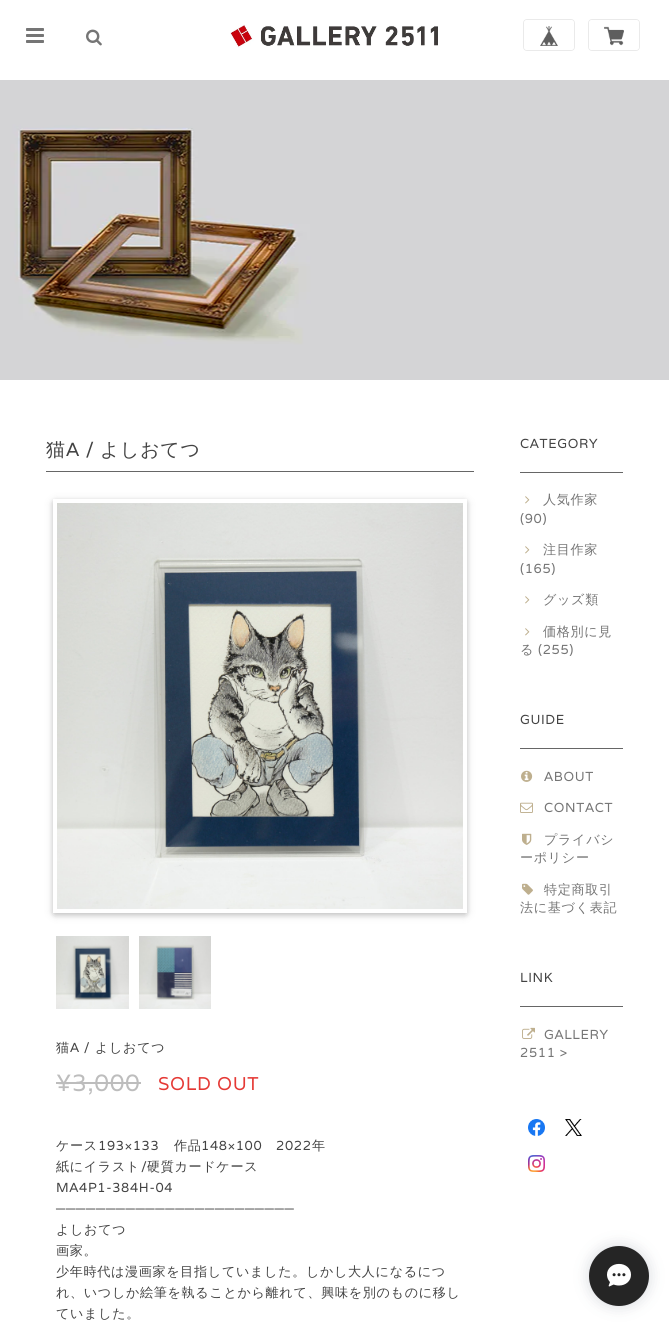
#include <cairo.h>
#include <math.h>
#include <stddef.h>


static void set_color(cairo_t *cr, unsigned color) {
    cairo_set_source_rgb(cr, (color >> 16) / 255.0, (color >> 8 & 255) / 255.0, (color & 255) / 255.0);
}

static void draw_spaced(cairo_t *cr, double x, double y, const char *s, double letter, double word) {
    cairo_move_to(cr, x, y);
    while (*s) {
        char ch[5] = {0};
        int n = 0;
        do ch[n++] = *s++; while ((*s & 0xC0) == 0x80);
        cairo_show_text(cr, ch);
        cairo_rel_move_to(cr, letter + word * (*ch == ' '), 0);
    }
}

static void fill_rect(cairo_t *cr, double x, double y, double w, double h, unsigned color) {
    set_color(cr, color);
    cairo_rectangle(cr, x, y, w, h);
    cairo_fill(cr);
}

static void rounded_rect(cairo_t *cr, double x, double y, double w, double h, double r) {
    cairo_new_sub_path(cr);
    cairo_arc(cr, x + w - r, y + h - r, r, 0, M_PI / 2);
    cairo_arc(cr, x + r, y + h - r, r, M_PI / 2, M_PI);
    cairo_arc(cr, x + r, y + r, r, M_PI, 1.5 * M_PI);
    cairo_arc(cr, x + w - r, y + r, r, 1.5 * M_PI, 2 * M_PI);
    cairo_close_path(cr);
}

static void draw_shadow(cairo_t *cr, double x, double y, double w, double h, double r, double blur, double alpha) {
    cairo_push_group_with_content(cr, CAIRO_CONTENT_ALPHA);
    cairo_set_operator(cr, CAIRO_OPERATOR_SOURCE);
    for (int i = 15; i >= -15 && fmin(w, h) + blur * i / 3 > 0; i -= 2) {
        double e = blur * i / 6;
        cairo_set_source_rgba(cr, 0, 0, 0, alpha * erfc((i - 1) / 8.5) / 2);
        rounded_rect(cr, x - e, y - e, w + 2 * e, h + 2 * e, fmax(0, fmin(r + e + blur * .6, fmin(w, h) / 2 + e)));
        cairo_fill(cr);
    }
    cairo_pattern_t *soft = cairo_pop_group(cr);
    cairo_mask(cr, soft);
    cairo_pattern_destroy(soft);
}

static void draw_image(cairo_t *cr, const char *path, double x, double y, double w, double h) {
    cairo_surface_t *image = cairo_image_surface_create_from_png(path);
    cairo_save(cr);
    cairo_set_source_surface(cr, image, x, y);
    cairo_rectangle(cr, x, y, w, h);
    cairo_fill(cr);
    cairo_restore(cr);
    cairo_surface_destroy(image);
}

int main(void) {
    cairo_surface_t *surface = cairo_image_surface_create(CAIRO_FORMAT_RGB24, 669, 1326);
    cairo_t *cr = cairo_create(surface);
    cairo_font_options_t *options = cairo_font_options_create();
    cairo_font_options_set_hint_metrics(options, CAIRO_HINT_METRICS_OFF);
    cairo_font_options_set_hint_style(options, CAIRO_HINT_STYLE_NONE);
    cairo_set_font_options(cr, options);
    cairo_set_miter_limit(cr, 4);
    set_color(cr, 0xFFFFFF);
    cairo_paint(cr);
    draw_image(cr, "assets/img1.png", 26, 28, 18, 15);
    draw_image(cr, "assets/img2.png", 86, 29, 16, 17);
    draw_image(cr, "assets/img3.png", 230, 24, 208, 24);
    rounded_rect(cr, 523.5, 19.5, 51, 31, 3.5);
    set_color(cr, 0xEAEAEA);
    cairo_set_line_width(cr, 1);
    cairo_stroke(cr);
    set_color(cr, 0xFFFFFF);
    rounded_rect(cr, 524, 20, 50, 30, 3);
    cairo_fill(cr);
    draw_image(cr, "assets/img4.png", 540, 26, 18, 20);
    rounded_rect(cr, 588.5, 19.5, 51, 31, 3.5);
    set_color(cr, 0xEAEAEA);
    cairo_stroke(cr);
    set_color(cr, 0xFFFFFF);
    rounded_rect(cr, 589, 20, 50, 30, 3);
    cairo_fill(cr);
    draw_image(cr, "assets/img5.png", 604, 26, 20, 20);
    draw_image(cr, "assets/img6.png", 0, 80, 669, 300);
    fill_rect(cr, 46, 471, 428, 1, 0x666666);
    cairo_select_font_face(cr, "WenQuanYi Zen Hei Medium", CAIRO_FONT_SLANT_NORMAL, CAIRO_FONT_WEIGHT_NORMAL);
    cairo_set_font_size(cr, 19);
    set_color(cr, 0x434343);
    draw_spaced(cr, 46, 456, "猫", 0.65, 0);
    cairo_select_font_face(cr, "Varela", CAIRO_FONT_SLANT_NORMAL, CAIRO_FONT_WEIGHT_NORMAL);
    draw_spaced(cr, 66, 456, "A /", 0.65, 0);
    cairo_select_font_face(cr, "WenQuanYi Zen Hei Medium", CAIRO_FONT_SLANT_NORMAL, CAIRO_FONT_WEIGHT_NORMAL);
    draw_spaced(cr, 100, 456, "よしおてつ", 0.65, 0);
    set_color(cr, 0x000000);
    draw_shadow(cr, 53, 501, 414, 414, 2, 5, 0.12);
    draw_shadow(cr, 53, 501, 414, 414, 2, 2.5, 0.16);
    cairo_rectangle(cr, 55, 501, 410, 410);
    set_color(cr, 0xFFFFFF);
    cairo_set_line_width(cr, 4);
    cairo_stroke(cr);
    draw_image(cr, "assets/img7.png", 57, 503, 406, 406);
    draw_image(cr, "assets/img8.png", 56, 936, 73, 73);
    draw_image(cr, "assets/img9.png", 139, 936, 72, 73);
    cairo_set_font_size(cr, 13.1);
    set_color(cr, 0x434343);
    draw_spaced(cr, 56, 1052, "猫", 0.65, 0);
    cairo_select_font_face(cr, "Varela", CAIRO_FONT_SLANT_NORMAL, CAIRO_FONT_WEIGHT_NORMAL);
    draw_spaced(cr, 70, 1052, "A /", 0.65, 0);
    cairo_select_font_face(cr, "WenQuanYi Zen Hei Medium", CAIRO_FONT_SLANT_NORMAL, CAIRO_FONT_WEIGHT_NORMAL);
    draw_spaced(cr, 95, 1052, "よしおてつ", 0.65, 0);
    cairo_select_font_face(cr, "Varela", CAIRO_FONT_SLANT_NORMAL, CAIRO_FONT_WEIGHT_NORMAL);
    cairo_set_font_size(cr, 23.5);
    set_color(cr, 0xBDBDBD);
    draw_spaced(cr, 56, 1091, "¥3,000", 0.65, 0);
    fill_rect(cr, 56, 1082, 85, 2, 0xBDBDBD);
    cairo_set_font_size(cr, 18.5);
    set_color(cr, 0xE53935);
    draw_spaced(cr, 158, 1090, "SOLD OUT", 0.65, 0);
    cairo_select_font_face(cr, "WenQuanYi Zen Hei Medium", CAIRO_FONT_SLANT_NORMAL, CAIRO_FONT_WEIGHT_NORMAL);
    cairo_set_font_size(cr, 13.1);
    set_color(cr, 0x434343);
    draw_spaced(cr, 56, 1150, "ケース", 0.65, 0);
    cairo_select_font_face(cr, "Varela", CAIRO_FONT_SLANT_NORMAL, CAIRO_FONT_WEIGHT_NORMAL);
    draw_spaced(cr, 98, 1150, "193×133", 0.65, 0);
    cairo_select_font_face(cr, "WenQuanYi Zen Hei Medium", CAIRO_FONT_SLANT_NORMAL, CAIRO_FONT_WEIGHT_NORMAL);
    draw_spaced(cr, 174, 1150, "作品", 0.65, 0);
    cairo_select_font_face(cr, "Varela", CAIRO_FONT_SLANT_NORMAL, CAIRO_FONT_WEIGHT_NORMAL);
    draw_spaced(cr, 201, 1150, "148×100", 0.65, 0);
    draw_spaced(cr, 276, 1150, "2022", 0.65, 0);
    cairo_select_font_face(cr, "WenQuanYi Zen Hei Medium", CAIRO_FONT_SLANT_NORMAL, CAIRO_FONT_WEIGHT_NORMAL);
    draw_spaced(cr, 312, 1150, "年", 0.65, 0);
    draw_spaced(cr, 56, 1171, "紙にイラスト", 0.65, 0);
    cairo_select_font_face(cr, "Varela", CAIRO_FONT_SLANT_NORMAL, CAIRO_FONT_WEIGHT_NORMAL);
    draw_spaced(cr, 141, 1171, "/", 0.65, 0);
    cairo_select_font_face(cr, "WenQuanYi Zen Hei Medium", CAIRO_FONT_SLANT_NORMAL, CAIRO_FONT_WEIGHT_NORMAL);
    draw_spaced(cr, 147, 1171, "硬質カードケース", 0.65, 0);
    cairo_select_font_face(cr, "Varela", CAIRO_FONT_SLANT_NORMAL, CAIRO_FONT_WEIGHT_NORMAL);
    draw_spaced(cr, 56, 1192, "MA4P1-384H-04", 0.65, 0);
    cairo_select_font_face(cr, "Liberation Sans", CAIRO_FONT_SLANT_NORMAL, CAIRO_FONT_WEIGHT_NORMAL);
    draw_spaced(cr, 56, 1213, "────────────────────────", 0.65, 0);
    cairo_select_font_face(cr, "WenQuanYi Zen Hei Medium", CAIRO_FONT_SLANT_NORMAL, CAIRO_FONT_WEIGHT_NORMAL);
    draw_spaced(cr, 56, 1234, "よしおてつ", 0.65, 0);
    draw_spaced(cr, 56, 1255, "画家。", 0.65, 0);
    draw_spaced(cr, 56, 1276, "少年時代は漫画家を目指していました。しかし大人になるにつ", 0.65, 0);
    draw_spaced(cr, 56, 1297, "れ、いつしか絵筆を執ることから離れて、興味を別のものに移し", 0.65, 0);
    draw_spaced(cr, 56, 1318, "ていました。", 0.65, 0);
    fill_rect(cr, 520, 472, 103, 1, 0x666666);
    cairo_select_font_face(cr, "Varela", CAIRO_FONT_SLANT_NORMAL, CAIRO_FONT_WEIGHT_NORMAL);
    set_color(cr, 0x434343);
    draw_spaced(cr, 520, 448, "CATEGORY", 0.65, 0);
    draw_image(cr, "assets/img10.png", 525, 496, 5, 8);
    cairo_select_font_face(cr, "WenQuanYi Zen Hei Medium", CAIRO_FONT_SLANT_NORMAL, CAIRO_FONT_WEIGHT_NORMAL);
    set_color(cr, 0x757575);
    draw_spaced(cr, 543, 504, "人気作家", 0.65, 0);
    cairo_select_font_face(cr, "Varela", CAIRO_FONT_SLANT_NORMAL, CAIRO_FONT_WEIGHT_NORMAL);
    draw_spaced(cr, 520, 523, "(90)", 0.65, 0);
    draw_image(cr, "assets/img10.png", 525, 546, 5, 8);
    cairo_select_font_face(cr, "WenQuanYi Zen Hei Medium", CAIRO_FONT_SLANT_NORMAL, CAIRO_FONT_WEIGHT_NORMAL);
    draw_spaced(cr, 543, 554, "注目作家", 0.65, 0);
    cairo_select_font_face(cr, "Varela", CAIRO_FONT_SLANT_NORMAL, CAIRO_FONT_WEIGHT_NORMAL);
    draw_spaced(cr, 520, 573, "(165)", 0.65, 0);
    draw_image(cr, "assets/img10.png", 525, 596, 5, 8);
    cairo_select_font_face(cr, "WenQuanYi Zen Hei Medium", CAIRO_FONT_SLANT_NORMAL, CAIRO_FONT_WEIGHT_NORMAL);
    draw_spaced(cr, 543, 604, "グッズ類", 0.65, 0);
    draw_image(cr, "assets/img10.png", 525, 628, 5, 8);
    draw_spaced(cr, 543, 636, "価格別に見", 0.65, 0);
    draw_spaced(cr, 520, 654, "る", 0.65, 0);
    cairo_select_font_face(cr, "Varela", CAIRO_FONT_SLANT_NORMAL, CAIRO_FONT_WEIGHT_NORMAL);
    draw_spaced(cr, 538, 654, "(255)", 0.65, 0);
    fill_rect(cr, 520, 748, 103, 1, 0x666666);
    set_color(cr, 0x434343);
    draw_spaced(cr, 520, 724, "GUIDE", 0.65, 0);
    draw_image(cr, "assets/img11.png", 521, 770, 12, 12);
    set_color(cr, 0x757575);
    draw_spaced(cr, 544, 781, "ABOUT", 0.65, 0);
    draw_image(cr, "assets/img12.png", 520, 802, 13, 11);
    draw_spaced(cr, 544, 812, "CONTACT", 0.65, 0);
    draw_image(cr, "assets/img13.png", 522, 833, 10, 12);
    cairo_select_font_face(cr, "WenQuanYi Zen Hei Medium", CAIRO_FONT_SLANT_NORMAL, CAIRO_FONT_WEIGHT_NORMAL);
    draw_spaced(cr, 544, 844, "プライバシ", 0.65, 0);
    draw_spaced(cr, 520, 862, "ーポリシー", 0.65, 0);
    draw_image(cr, "assets/img14.png", 522, 883, 11, 12);
    draw_spaced(cr, 544, 894, "特定商取引", 0.65, 0);
    draw_spaced(cr, 520, 912, "法に基づく表記", 0.65, 0);
    fill_rect(cr, 520, 1006, 103, 1, 0x666666);
    cairo_select_font_face(cr, "Varela", CAIRO_FONT_SLANT_NORMAL, CAIRO_FONT_WEIGHT_NORMAL);
    set_color(cr, 0x434343);
    draw_spaced(cr, 520, 982, "LINK", 0.65, 0);
    draw_image(cr, "assets/img15.png", 522, 1027, 13, 12);
    set_color(cr, 0x757575);
    draw_spaced(cr, 544, 1039, "GALLERY", 0.65, 0);
    draw_spaced(cr, 520, 1057, "2511 >", 0.65, 0);
    draw_image(cr, "assets/img16.png", 528, 1119, 17, 17);
    draw_image(cr, "assets/img17.png", 565, 1119, 17, 17);
    draw_image(cr, "assets/img18.png", 528, 1155, 17, 17);
    set_color(cr, 0x334258);
    draw_shadow(cr, 589, 1246, 60, 60, 30, 7.5, 0.2);
    set_color(cr, 0x252525);
    cairo_arc(cr, 619, 1276, 30, 0, 2 * M_PI);
    cairo_fill(cr);
    draw_image(cr, "assets/img19.png", 607, 1263, 24, 24);
    cairo_surface_write_to_png(surface, "output.png");
    cairo_font_options_destroy(options);
    cairo_destroy(cr);
    cairo_surface_destroy(surface);
    return 0;
}
